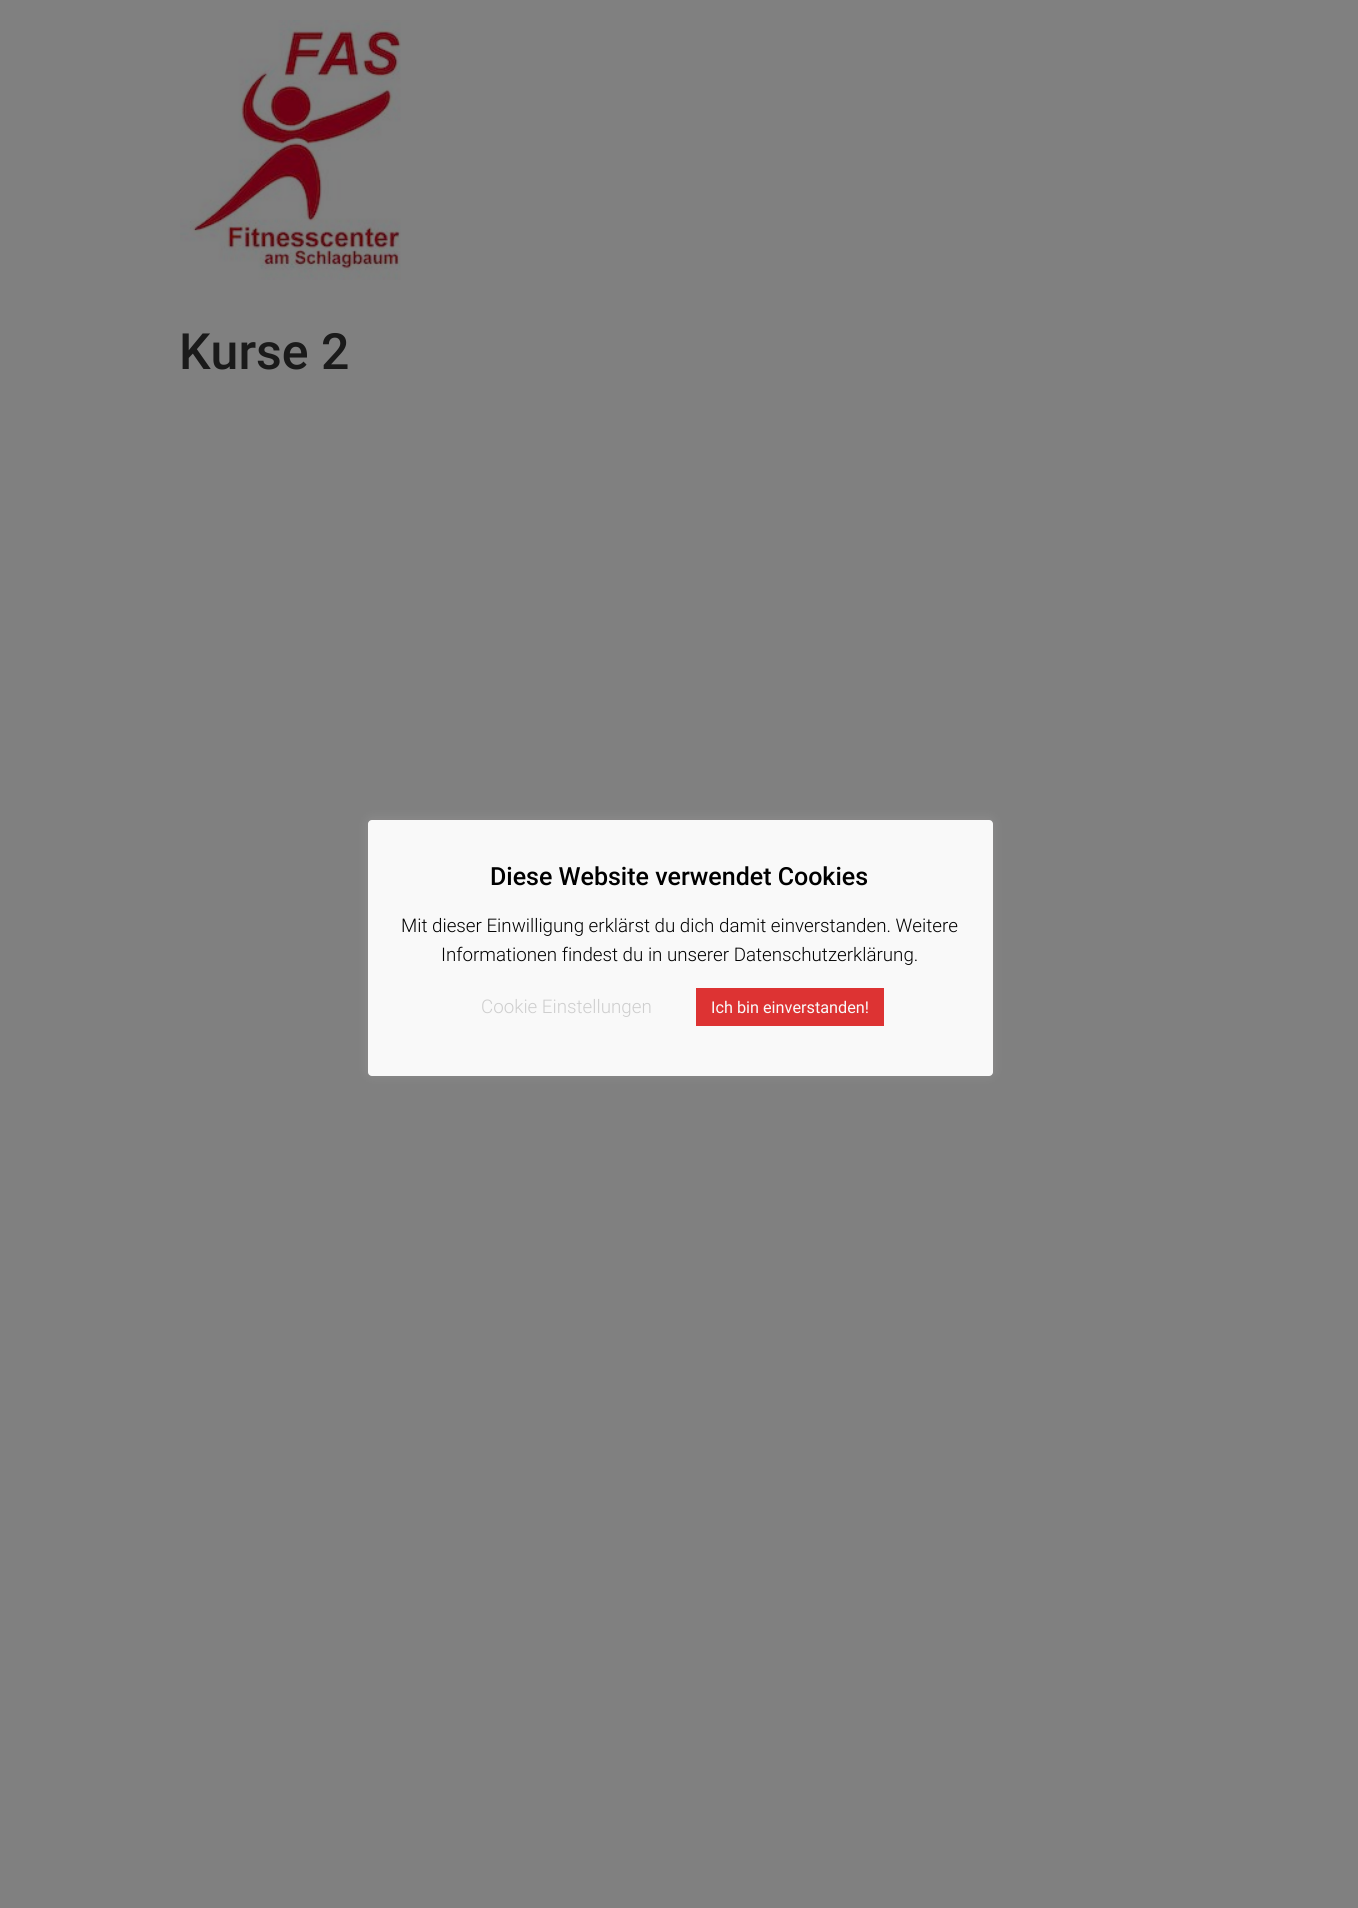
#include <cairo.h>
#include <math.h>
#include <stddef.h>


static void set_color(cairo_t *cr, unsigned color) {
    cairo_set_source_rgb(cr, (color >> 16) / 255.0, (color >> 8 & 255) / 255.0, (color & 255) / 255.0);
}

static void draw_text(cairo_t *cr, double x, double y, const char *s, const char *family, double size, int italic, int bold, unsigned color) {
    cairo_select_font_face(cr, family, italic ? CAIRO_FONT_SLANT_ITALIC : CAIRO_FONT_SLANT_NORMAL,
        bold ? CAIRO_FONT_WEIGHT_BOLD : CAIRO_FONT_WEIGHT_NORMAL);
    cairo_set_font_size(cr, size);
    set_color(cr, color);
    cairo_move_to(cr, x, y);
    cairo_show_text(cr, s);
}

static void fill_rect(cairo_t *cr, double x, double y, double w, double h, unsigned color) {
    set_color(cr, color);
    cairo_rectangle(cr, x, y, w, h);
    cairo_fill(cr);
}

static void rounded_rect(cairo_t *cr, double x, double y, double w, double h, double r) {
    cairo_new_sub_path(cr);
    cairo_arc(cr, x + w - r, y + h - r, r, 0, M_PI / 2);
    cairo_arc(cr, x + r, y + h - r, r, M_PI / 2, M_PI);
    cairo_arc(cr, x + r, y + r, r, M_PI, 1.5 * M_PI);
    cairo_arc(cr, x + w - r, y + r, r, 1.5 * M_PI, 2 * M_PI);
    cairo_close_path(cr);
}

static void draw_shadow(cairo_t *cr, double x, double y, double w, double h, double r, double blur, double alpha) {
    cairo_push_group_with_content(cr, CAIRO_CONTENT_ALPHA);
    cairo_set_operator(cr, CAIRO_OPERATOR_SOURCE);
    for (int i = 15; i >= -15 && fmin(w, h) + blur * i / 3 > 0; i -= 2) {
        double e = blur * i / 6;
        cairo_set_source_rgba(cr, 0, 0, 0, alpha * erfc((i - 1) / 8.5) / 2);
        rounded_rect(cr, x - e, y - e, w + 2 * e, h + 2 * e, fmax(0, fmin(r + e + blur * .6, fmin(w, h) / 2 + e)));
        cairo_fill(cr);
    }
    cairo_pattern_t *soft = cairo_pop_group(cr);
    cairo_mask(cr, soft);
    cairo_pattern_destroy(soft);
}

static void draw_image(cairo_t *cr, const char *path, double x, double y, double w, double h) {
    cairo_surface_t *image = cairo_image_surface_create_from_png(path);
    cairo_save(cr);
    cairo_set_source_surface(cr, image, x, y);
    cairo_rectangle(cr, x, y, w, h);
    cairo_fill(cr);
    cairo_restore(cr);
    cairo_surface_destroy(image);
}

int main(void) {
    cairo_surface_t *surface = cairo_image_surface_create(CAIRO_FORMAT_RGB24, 1358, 1908);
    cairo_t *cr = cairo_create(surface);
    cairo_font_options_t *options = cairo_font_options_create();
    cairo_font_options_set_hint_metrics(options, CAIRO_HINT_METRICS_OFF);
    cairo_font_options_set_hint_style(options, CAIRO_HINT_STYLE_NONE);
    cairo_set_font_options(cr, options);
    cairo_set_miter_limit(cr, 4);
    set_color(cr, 0x808080);
    cairo_paint(cr);
    draw_image(cr, "assets/img1.png", 180, 20, 221, 260);
    draw_text(cr, 179, 369, "Kurse 2", "Roboto Medium", 50, 0, 0, 0x1A1A1A);
    set_color(cr, 0xACABAB);
    draw_shadow(cr, 368, 819, 625, 256, 4, 6, 0.3);
    set_color(cr, 0xF9F9F9);
    rounded_rect(cr, 368, 820, 625, 256, 4);
    cairo_fill(cr);
    draw_text(cr, 490, 885, "Diese Website verwendet Cookies", "Roboto Medium", 25, 0, 0, 0x000000);
    draw_text(cr, 401, 932, "Mit dieser Einwilligung erklärst du dich damit einverstanden. Weitere", "Roboto Light", 18.75, 0, 0, 0x000000);
    draw_text(cr, 441, 961, "Informationen findest du in unserer Datenschutzerklärung.", "Roboto Light", 18.75, 0, 0, 0x000000);
    draw_text(cr, 481, 1013, "Cookie Einstellungen", "Roboto Light", 18.75, 0, 0, 0xCECECE);
    fill_rect(cr, 696, 988, 188, 38, 0xDD3333);
    draw_text(cr, 711, 1013, "Ich bin einverstanden!", "Roboto", 16.25, 0, 0, 0xF9F9F9);
    cairo_surface_write_to_png(surface, "output.png");
    cairo_font_options_destroy(options);
    cairo_destroy(cr);
    cairo_surface_destroy(surface);
    return 0;
}
